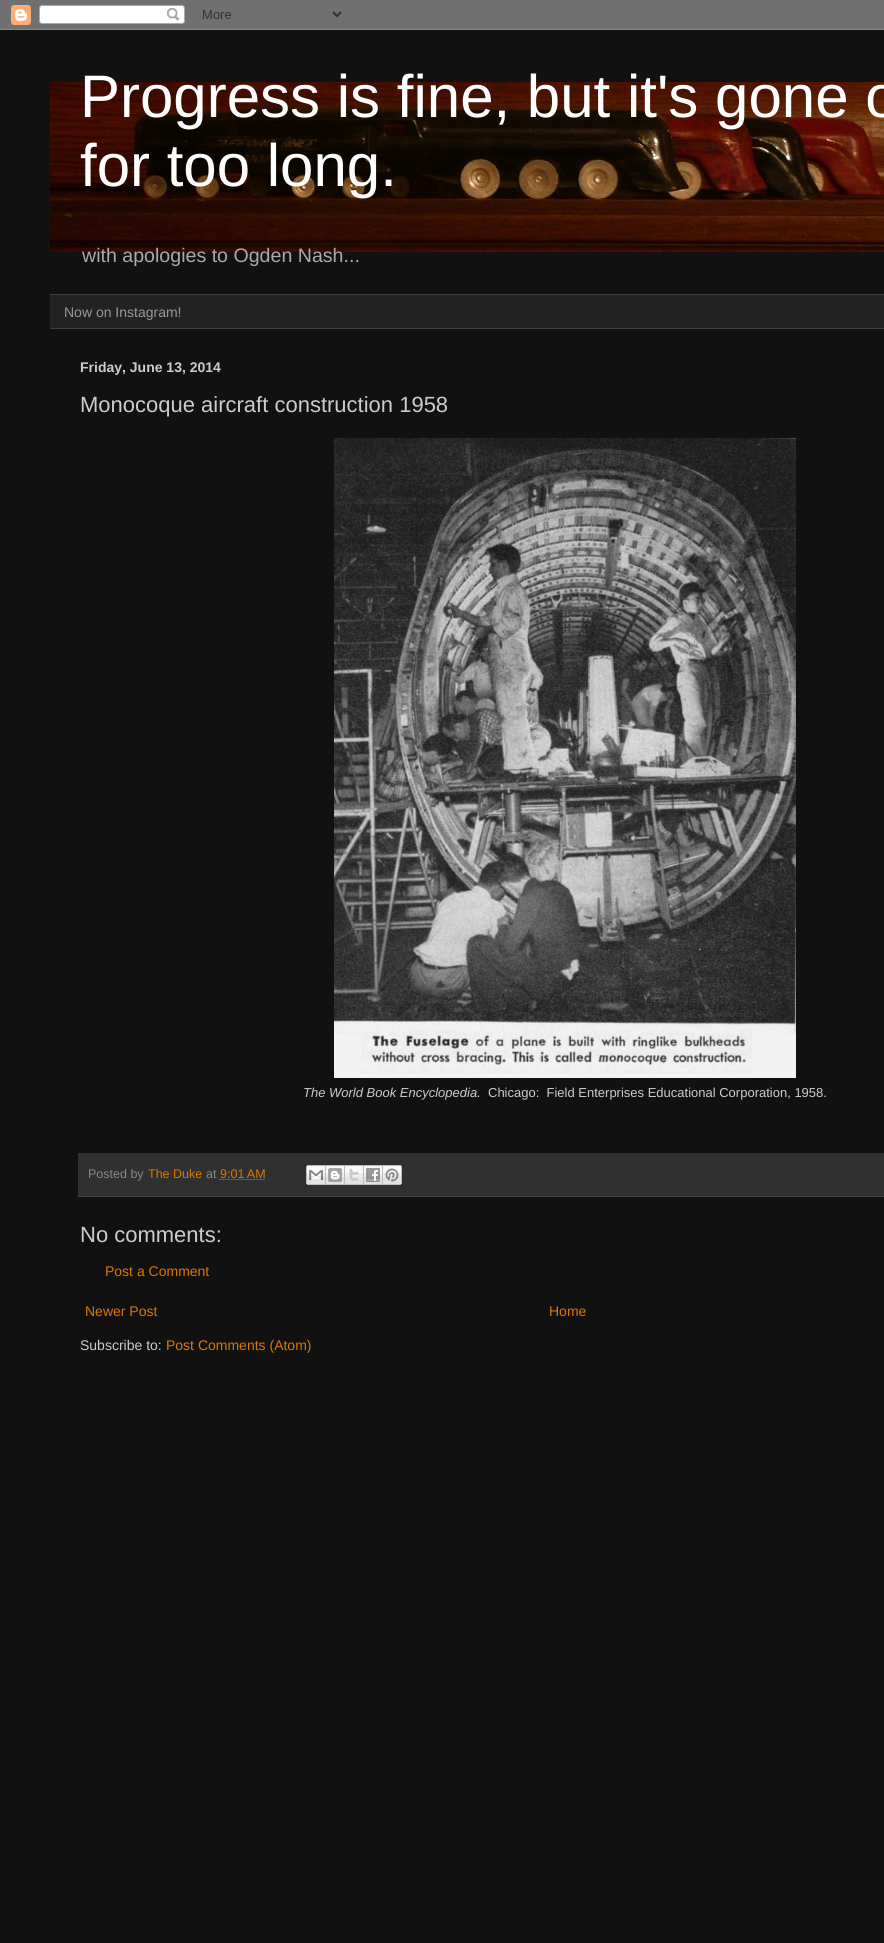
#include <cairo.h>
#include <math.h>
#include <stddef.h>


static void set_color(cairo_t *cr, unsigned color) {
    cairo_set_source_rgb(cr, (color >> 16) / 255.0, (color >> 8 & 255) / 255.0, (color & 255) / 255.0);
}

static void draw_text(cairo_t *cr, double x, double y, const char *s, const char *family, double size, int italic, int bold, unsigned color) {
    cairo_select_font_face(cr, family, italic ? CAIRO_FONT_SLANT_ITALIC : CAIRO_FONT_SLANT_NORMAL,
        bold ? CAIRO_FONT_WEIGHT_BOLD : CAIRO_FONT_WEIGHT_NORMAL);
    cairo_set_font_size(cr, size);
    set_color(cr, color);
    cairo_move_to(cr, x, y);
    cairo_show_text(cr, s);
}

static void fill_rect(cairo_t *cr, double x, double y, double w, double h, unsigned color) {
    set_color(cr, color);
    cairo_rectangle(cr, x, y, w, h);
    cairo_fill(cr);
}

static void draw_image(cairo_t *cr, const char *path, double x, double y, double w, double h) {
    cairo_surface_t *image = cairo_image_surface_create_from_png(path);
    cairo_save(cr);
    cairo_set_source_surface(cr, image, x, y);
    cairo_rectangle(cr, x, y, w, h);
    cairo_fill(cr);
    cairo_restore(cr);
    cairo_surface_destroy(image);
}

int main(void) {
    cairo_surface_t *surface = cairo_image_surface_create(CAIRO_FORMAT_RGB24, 884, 1943);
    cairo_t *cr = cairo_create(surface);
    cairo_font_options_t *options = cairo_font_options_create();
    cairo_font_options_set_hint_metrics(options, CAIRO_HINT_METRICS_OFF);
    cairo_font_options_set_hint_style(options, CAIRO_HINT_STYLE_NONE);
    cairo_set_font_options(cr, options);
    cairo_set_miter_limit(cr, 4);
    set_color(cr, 0x111111);
    cairo_paint(cr);
    draw_image(cr, "assets/img1.png", 0, 0, 884, 30);
    draw_image(cr, "assets/img2.png", 50, 82, 834, 170);
    draw_text(cr, 80, 117, "Progress is fine, but it's gone o", "Liberation Sans", 60, 0, 0, 0xFFFFFF);
    draw_text(cr, 80, 186, "for too long.", "Liberation Sans", 60, 0, 0, 0xFFFFFF);
    draw_text(cr, 82, 262, "with apologies to Ogden Nash...", "Liberation Sans", 19.6, 0, 0, 0xAAAAAA);
    fill_rect(cr, 50, 295, 834, 33, 0x222222);
    fill_rect(cr, 50, 294, 834, 1, 0x404040);
    fill_rect(cr, 50, 328, 834, 1, 0x404040);
    draw_text(cr, 64, 317, "Now on Instagram!", "Liberation Sans", 14, 0, 0, 0x999999);
    draw_text(cr, 80, 372, "Friday, June 13, 2014", "Liberation Sans", 14, 0, 1, 0xCCCCCC);
    draw_text(cr, 80, 412, "Monocoque aircraft construction 1958", "Liberation Sans", 22, 0, 0, 0xCCCCCC);
    draw_image(cr, "assets/img3.png", 334, 438, 462, 640);
    draw_text(cr, 303, 1097, "The World Book Encyclopedia.", "Liberation Sans", 13, 1, 0, 0xCCCCCC);
    draw_text(cr, 488, 1097, "Chicago:  Field Enterprises Educational Corporation, 1958.", "Liberation Sans", 13, 0, 0, 0xCCCCCC);
    fill_rect(cr, 78, 1153, 806, 43, 0x303030);
    fill_rect(cr, 78, 1196, 806, 1, 0x444444);
    draw_text(cr, 88, 1178, "Posted by", "Liberation Sans", 12.5, 0, 0, 0x888888);
    draw_text(cr, 148, 1178, "The Duke", "Liberation Sans", 12.5, 0, 0, 0xDD7700);
    draw_text(cr, 206, 1178, "at", "Liberation Sans", 12.5, 0, 0, 0x888888);
    draw_text(cr, 220, 1178, "9:01 AM", "Liberation Sans", 12.5, 0, 0, 0xDD7700);
    cairo_new_path(cr);
    cairo_move_to(cr, 219.5, 1179.5);
    cairo_line_to(cr, 265.5, 1179.5);
    cairo_set_line_width(cr, 1);
    cairo_set_dash(cr, (double[]){1, 1}, 2, 0);
    cairo_stroke(cr);
    draw_image(cr, "assets/img4.png", 306, 1165, 20, 20);
    draw_image(cr, "assets/img5.png", 326, 1165, 19, 20);
    draw_image(cr, "assets/img6.png", 345, 1165, 19, 20);
    draw_image(cr, "assets/img7.png", 364, 1165, 19, 20);
    draw_image(cr, "assets/img8.png", 383, 1165, 19, 20);
    draw_text(cr, 80, 1242, "No comments:", "Liberation Sans", 22, 0, 0, 0xCCCCCC);
    draw_text(cr, 105, 1276, "Post a Comment", "Liberation Sans", 14, 0, 0, 0xDD7700);
    draw_text(cr, 85, 1316, "Newer Post", "Liberation Sans", 14, 0, 0, 0xDD7700);
    draw_text(cr, 549, 1316, "Home", "Liberation Sans", 14, 0, 0, 0xDD7700);
    draw_text(cr, 80, 1350, "Subscribe to:", "Liberation Sans", 14, 0, 0, 0xCCCCCC);
    draw_text(cr, 166, 1350, "Post Comments (Atom)", "Liberation Sans", 14, 0, 0, 0xDD7700);
    cairo_surface_write_to_png(surface, "output.png");
    cairo_font_options_destroy(options);
    cairo_destroy(cr);
    cairo_surface_destroy(surface);
    return 0;
}
